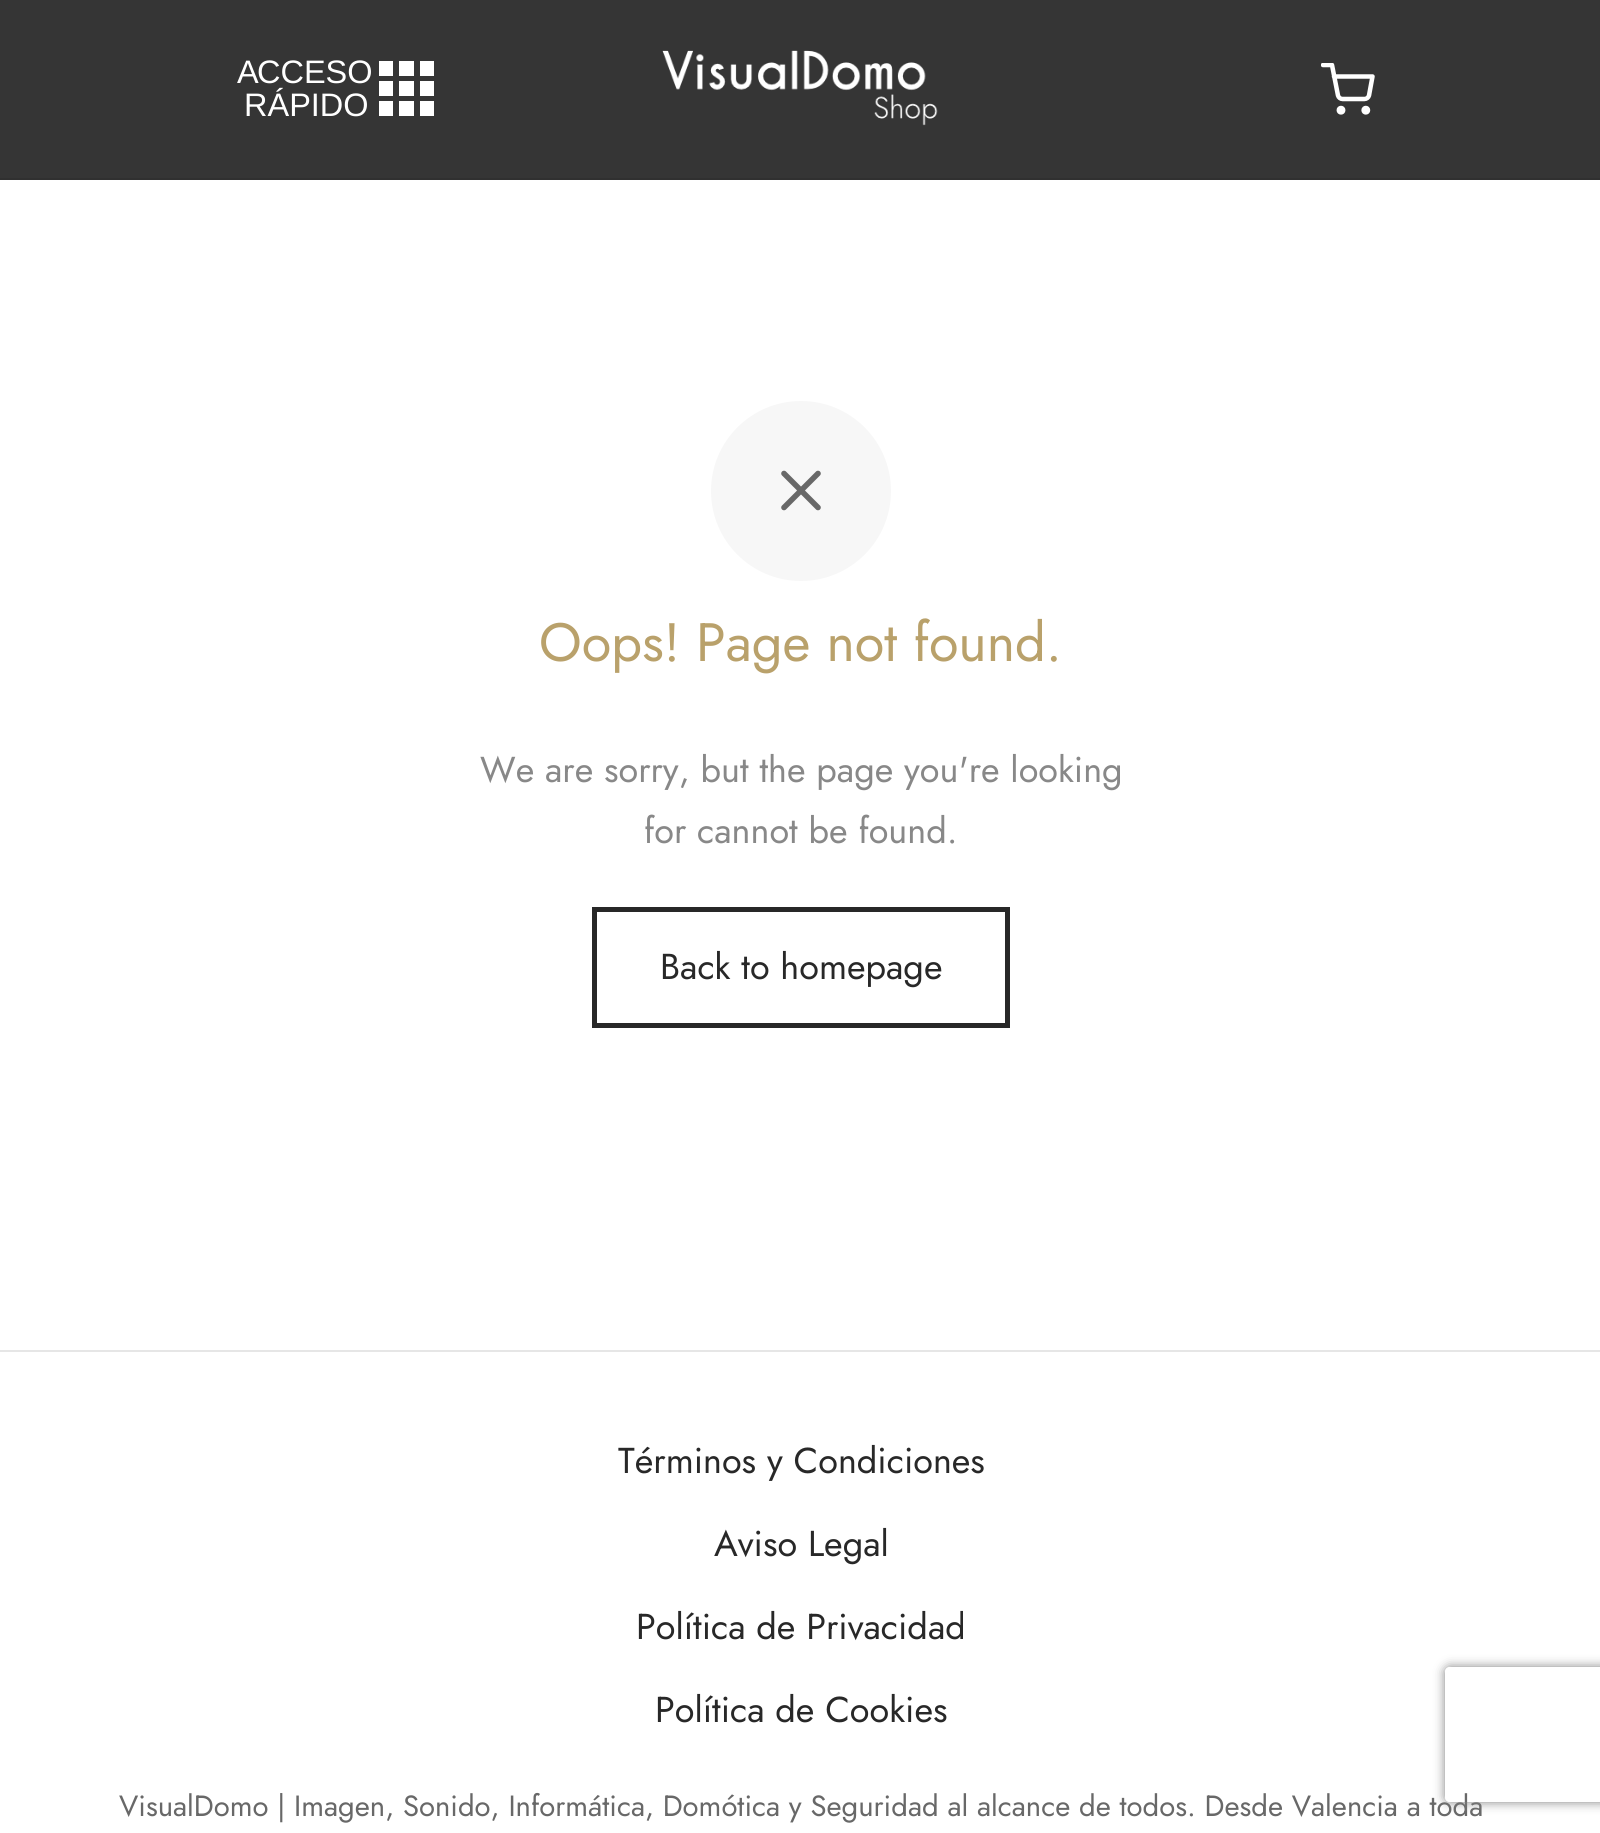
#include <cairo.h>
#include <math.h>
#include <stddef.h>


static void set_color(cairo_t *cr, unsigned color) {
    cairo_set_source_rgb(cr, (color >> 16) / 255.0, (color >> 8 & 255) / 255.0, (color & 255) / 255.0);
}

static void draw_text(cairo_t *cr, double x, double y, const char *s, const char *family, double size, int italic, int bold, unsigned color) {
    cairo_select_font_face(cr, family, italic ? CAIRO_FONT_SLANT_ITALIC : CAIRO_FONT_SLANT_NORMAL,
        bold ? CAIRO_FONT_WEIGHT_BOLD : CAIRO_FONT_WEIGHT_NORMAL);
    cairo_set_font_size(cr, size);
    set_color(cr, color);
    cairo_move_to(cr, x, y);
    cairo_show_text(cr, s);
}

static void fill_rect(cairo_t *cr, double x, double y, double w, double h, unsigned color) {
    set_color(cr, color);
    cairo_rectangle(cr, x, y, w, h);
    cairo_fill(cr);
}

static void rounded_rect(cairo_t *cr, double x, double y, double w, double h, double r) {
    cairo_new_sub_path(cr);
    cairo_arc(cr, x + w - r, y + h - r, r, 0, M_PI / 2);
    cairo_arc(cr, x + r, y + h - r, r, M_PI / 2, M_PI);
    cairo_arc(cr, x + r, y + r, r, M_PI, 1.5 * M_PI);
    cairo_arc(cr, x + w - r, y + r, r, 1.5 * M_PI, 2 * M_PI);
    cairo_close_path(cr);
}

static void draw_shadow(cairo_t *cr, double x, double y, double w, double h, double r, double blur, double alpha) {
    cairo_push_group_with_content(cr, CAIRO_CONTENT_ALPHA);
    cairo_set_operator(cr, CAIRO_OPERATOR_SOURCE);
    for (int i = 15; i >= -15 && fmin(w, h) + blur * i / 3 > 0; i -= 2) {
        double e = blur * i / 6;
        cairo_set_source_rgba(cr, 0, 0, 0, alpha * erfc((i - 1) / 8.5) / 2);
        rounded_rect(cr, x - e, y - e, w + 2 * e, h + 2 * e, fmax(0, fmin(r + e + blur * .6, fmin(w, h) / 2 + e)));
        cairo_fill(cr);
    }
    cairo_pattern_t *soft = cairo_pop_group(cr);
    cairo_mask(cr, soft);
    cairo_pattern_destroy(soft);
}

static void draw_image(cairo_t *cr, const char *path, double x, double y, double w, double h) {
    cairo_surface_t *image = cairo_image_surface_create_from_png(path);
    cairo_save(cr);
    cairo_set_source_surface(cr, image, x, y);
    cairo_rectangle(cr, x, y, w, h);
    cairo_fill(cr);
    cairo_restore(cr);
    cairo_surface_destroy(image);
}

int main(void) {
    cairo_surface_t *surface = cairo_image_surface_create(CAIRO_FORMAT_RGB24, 1600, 1833);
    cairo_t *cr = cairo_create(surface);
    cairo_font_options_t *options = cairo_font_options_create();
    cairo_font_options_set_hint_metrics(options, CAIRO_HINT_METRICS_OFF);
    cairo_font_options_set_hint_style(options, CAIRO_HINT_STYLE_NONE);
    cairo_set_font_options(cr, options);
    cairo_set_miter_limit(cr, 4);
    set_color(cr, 0xFFFFFF);
    cairo_paint(cr);
    fill_rect(cr, 0, 0, 1600, 178, 0x353535);
    fill_rect(cr, 379, 61, 14, 15, 0xFFFFFF);
    fill_rect(cr, 399, 61, 15, 15, 0xFFFFFF);
    fill_rect(cr, 420, 61, 14, 15, 0xFFFFFF);
    fill_rect(cr, 379, 81, 14, 15, 0xFFFFFF);
    fill_rect(cr, 399, 81, 15, 15, 0xFFFFFF);
    fill_rect(cr, 420, 81, 14, 15, 0xFFFFFF);
    fill_rect(cr, 379, 101, 14, 15, 0xFFFFFF);
    fill_rect(cr, 399, 101, 15, 15, 0xFFFFFF);
    fill_rect(cr, 420, 101, 14, 15, 0xFFFFFF);
    draw_text(cr, 237, 83, "A", "Liberation Sans", 32.5, 0, 0, 0xFFFFFF);
    draw_text(cr, 257, 83, "CCESO", "Liberation Sans", 32.5, 0, 0, 0xFFFFFF);
    draw_text(cr, 244, 116, "RÁPIDO", "Liberation Sans", 32.5, 0, 0, 0xFFFFFF);
    draw_image(cr, "assets/img1.png", 662, 50, 276, 76);
    cairo_arc(cr, 1341, 110.2, 2.2, 0, 2 * M_PI);
    cairo_set_line_width(cr, 4.5);
    cairo_stroke(cr);
    cairo_arc(cr, 1365.8, 110.2, 2.2, 0, 2 * M_PI);
    cairo_stroke(cr);
    cairo_save(cr);
    cairo_rectangle(cr, 1321, 63, 54, 54);
    cairo_clip(cr);
    cairo_new_path(cr);
    cairo_move_to(cr, 1323, 65);
    cairo_line_to(cr, 1332, 65);
    cairo_line_to(cr, 1338, 95.5);
    cairo_curve_to(cr, 1338.5, 97.5, 1340.5, 99, 1342.5, 99);
    cairo_line_to(cr, 1364.5, 99);
    cairo_curve_to(cr, 1366.5, 99, 1368.5, 97.5, 1369, 95.5);
    cairo_line_to(cr, 1372.5, 76.5);
    cairo_line_to(cr, 1334, 76.5);
    cairo_set_line_cap(cr, CAIRO_LINE_CAP_ROUND);
    cairo_set_line_join(cr, CAIRO_LINE_JOIN_ROUND);
    cairo_stroke(cr);
    cairo_restore(cr);
    fill_rect(cr, 0, 178, 1600, 2, 0x303030);
    set_color(cr, 0xF7F7F7);
    cairo_arc(cr, 801, 491, 90, 0, 2 * M_PI);
    cairo_fill(cr);
    cairo_new_path(cr);
    cairo_move_to(cr, 818, 473.5);
    cairo_line_to(cr, 784, 507.5);
    cairo_move_to(cr, 784, 473.5);
    cairo_line_to(cr, 818, 507.5);
    set_color(cr, 0x686868);
    cairo_set_line_width(cr, 5.6);
    cairo_set_line_cap(cr, CAIRO_LINE_CAP_ROUND);
    cairo_set_line_join(cr, CAIRO_LINE_JOIN_ROUND);
    cairo_stroke(cr);
    draw_text(cr, 539, 661, "Oops! Page not found.", "Jost", 54, 0, 0, 0xB9A16B);
    draw_text(cr, 480, 782, "We are sorry, but the page you're looking", "Jost", 36, 0, 0, 0x888888);
    draw_text(cr, 644, 843, "for cannot be found.", "Jost", 36, 0, 0, 0x888888);
    cairo_rectangle(cr, 594.5, 909.5, 413, 116);
    set_color(cr, 0x282828);
    cairo_set_line_width(cr, 5);
    cairo_set_line_cap(cr, CAIRO_LINE_CAP_BUTT);
    cairo_set_line_join(cr, CAIRO_LINE_JOIN_MITER);
    cairo_stroke(cr);
    draw_text(cr, 660, 979, "Back to homepage", "Jost", 36, 0, 0, 0x282828);
    fill_rect(cr, 0, 1350, 1600, 2, 0xE6E6E6);
    draw_text(cr, 618, 1473, "Términos y Condiciones", "Jost", 36, 0, 0, 0x282828);
    draw_text(cr, 714, 1556, "Aviso Legal", "Jost", 36, 0, 0, 0x282828);
    draw_text(cr, 636, 1639, "Política de Privacidad", "Jost", 36, 0, 0, 0x282828);
    draw_text(cr, 655, 1722, "Política de Cookies", "Jost", 36, 0, 0, 0x282828);
    draw_text(cr, 119, 1816, "VisualDomo | Imagen, Sonido, Informática, Domótica y Seguridad al alcance de todos. Desde Valencia a toda", "Jost", 29.25, 0, 0, 0x686868);
    cairo_save(cr);
    cairo_set_fill_rule(cr, CAIRO_FILL_RULE_EVEN_ODD);
    cairo_new_path(cr);
    cairo_move_to(cr, 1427, 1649);
    cairo_line_to(cr, 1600, 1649);
    cairo_line_to(cr, 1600, 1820);
    cairo_line_to(cr, 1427, 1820);
    cairo_close_path(cr);
    cairo_move_to(cr, 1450, 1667);
    cairo_line_to(cr, 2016, 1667);
    cairo_curve_to(cr, 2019, 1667, 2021, 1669, 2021, 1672);
    cairo_line_to(cr, 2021, 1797);
    cairo_curve_to(cr, 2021, 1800, 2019, 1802, 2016, 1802);
    cairo_line_to(cr, 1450, 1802);
    cairo_curve_to(cr, 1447, 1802, 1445, 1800, 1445, 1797);
    cairo_line_to(cr, 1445, 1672);
    cairo_curve_to(cr, 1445, 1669, 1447, 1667, 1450, 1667);
    cairo_close_path(cr);
    cairo_clip(cr);
    set_color(cr, 0x808080);
    draw_shadow(cr, 1445, 1667, 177, 135, 5, 5.5, 1);
    cairo_restore(cr);
    cairo_surface_write_to_png(surface, "output.png");
    cairo_font_options_destroy(options);
    cairo_destroy(cr);
    cairo_surface_destroy(surface);
    return 0;
}
